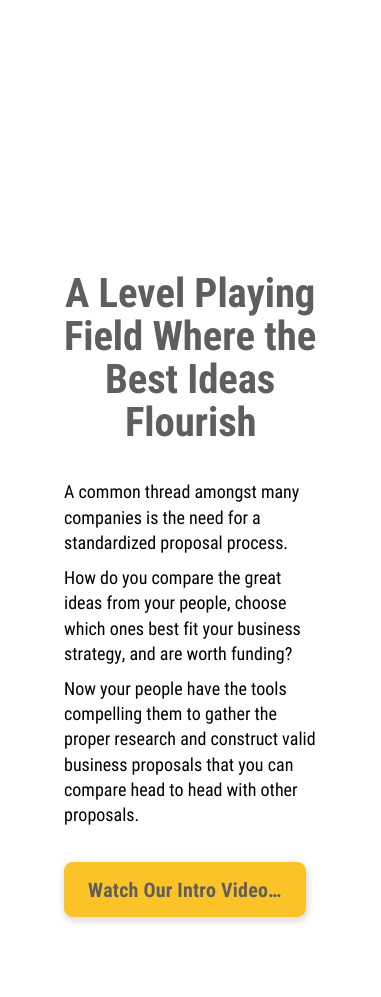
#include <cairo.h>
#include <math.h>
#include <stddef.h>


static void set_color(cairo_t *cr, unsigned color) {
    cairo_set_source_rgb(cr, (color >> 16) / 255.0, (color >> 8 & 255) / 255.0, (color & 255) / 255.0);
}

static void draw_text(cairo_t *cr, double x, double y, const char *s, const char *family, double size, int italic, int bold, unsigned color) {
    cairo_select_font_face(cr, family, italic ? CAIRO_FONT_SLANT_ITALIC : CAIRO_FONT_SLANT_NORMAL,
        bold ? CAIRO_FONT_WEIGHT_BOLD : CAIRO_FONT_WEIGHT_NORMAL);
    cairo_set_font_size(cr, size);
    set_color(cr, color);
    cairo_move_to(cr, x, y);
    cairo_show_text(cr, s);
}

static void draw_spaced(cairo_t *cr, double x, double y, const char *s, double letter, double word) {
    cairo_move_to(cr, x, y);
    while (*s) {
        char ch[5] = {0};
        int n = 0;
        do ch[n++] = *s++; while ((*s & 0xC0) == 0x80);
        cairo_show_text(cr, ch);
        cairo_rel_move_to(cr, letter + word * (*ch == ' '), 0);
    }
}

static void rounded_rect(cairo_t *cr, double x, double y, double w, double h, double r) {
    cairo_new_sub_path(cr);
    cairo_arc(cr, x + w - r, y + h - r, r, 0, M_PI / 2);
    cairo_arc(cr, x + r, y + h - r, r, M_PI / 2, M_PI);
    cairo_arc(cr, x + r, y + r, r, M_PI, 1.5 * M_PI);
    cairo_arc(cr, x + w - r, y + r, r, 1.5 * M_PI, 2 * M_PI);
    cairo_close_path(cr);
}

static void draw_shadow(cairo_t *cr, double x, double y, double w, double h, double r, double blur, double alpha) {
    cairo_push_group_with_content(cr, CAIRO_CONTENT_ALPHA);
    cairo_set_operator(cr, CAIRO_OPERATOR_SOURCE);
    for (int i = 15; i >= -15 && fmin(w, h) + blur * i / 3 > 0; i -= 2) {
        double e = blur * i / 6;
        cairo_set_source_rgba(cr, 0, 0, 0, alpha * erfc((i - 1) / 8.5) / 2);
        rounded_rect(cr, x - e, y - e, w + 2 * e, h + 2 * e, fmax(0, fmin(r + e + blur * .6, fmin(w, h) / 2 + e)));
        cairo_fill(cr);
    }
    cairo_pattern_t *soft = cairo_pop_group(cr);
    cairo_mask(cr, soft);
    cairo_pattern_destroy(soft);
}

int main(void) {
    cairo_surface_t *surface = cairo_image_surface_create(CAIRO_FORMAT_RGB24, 381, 997);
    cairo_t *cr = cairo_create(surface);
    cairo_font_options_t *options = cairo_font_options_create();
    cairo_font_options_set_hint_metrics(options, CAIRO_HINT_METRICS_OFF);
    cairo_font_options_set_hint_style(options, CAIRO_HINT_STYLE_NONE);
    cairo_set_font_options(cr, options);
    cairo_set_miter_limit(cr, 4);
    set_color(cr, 0xFFFFFF);
    cairo_paint(cr);
    cairo_select_font_face(cr, "Roboto Condensed", CAIRO_FONT_SLANT_NORMAL, CAIRO_FONT_WEIGHT_BOLD);
    cairo_set_font_size(cr, 40.75);
    set_color(cr, 0x5E5E5E);
    draw_spaced(cr, 65, 307, "A Level Playing", -0.1, 0);
    draw_spaced(cr, 64, 350, "Field Where the", -0.1, 0);
    draw_spaced(cr, 105, 393, "Best Ideas", -0.1, 0);
    draw_spaced(cr, 125, 436, "Flourish", -0.1, 0);
    draw_text(cr, 64, 498, "A common thread amongst many", "Roboto Condensed", 18, 0, 0, 0x000000);
    draw_text(cr, 64, 524, "companies is the need for a", "Roboto Condensed", 18, 0, 0, 0x000000);
    draw_text(cr, 64, 549, "standardized proposal process.", "Roboto Condensed", 18, 0, 0, 0x000000);
    draw_text(cr, 64, 584, "How do you compare the great", "Roboto Condensed", 18, 0, 0, 0x000000);
    draw_text(cr, 64, 609, "ideas from your people, choose", "Roboto Condensed", 18, 0, 0, 0x000000);
    draw_text(cr, 64, 635, "which ones best fit your business", "Roboto Condensed", 18, 0, 0, 0x000000);
    draw_text(cr, 64, 660, "strategy, and are worth funding?", "Roboto Condensed", 18, 0, 0, 0x000000);
    draw_text(cr, 64, 695, "Now your people have the tools", "Roboto Condensed", 18, 0, 0, 0x000000);
    draw_text(cr, 64, 720, "compelling them to gather the", "Roboto Condensed", 18, 0, 0, 0x000000);
    draw_text(cr, 64, 745, "proper research and construct valid", "Roboto Condensed", 18, 0, 0, 0x000000);
    draw_text(cr, 64, 771, "business proposals that you can", "Roboto Condensed", 18, 0, 0, 0x000000);
    draw_text(cr, 64, 796, "compare head to head with other", "Roboto Condensed", 18, 0, 0, 0x000000);
    draw_text(cr, 64, 821, "proposals.", "Roboto Condensed", 18, 0, 0, 0x000000);
    set_color(cr, 0x000000);
    draw_shadow(cr, 63, 863, 246, 59, 11, 3, 0.12);
    set_color(cr, 0xFCC328);
    rounded_rect(cr, 64, 862, 242, 55, 9);
    cairo_fill(cr);
    cairo_select_font_face(cr, "Roboto Condensed", CAIRO_FONT_SLANT_NORMAL, CAIRO_FONT_WEIGHT_BOLD);
    cairo_set_font_size(cr, 20);
    set_color(cr, 0x5E5E5E);
    draw_spaced(cr, 88, 897, "Watch Our Intro Video…", 0.2, 0);
    cairo_surface_write_to_png(surface, "output.png");
    cairo_font_options_destroy(options);
    cairo_destroy(cr);
    cairo_surface_destroy(surface);
    return 0;
}
